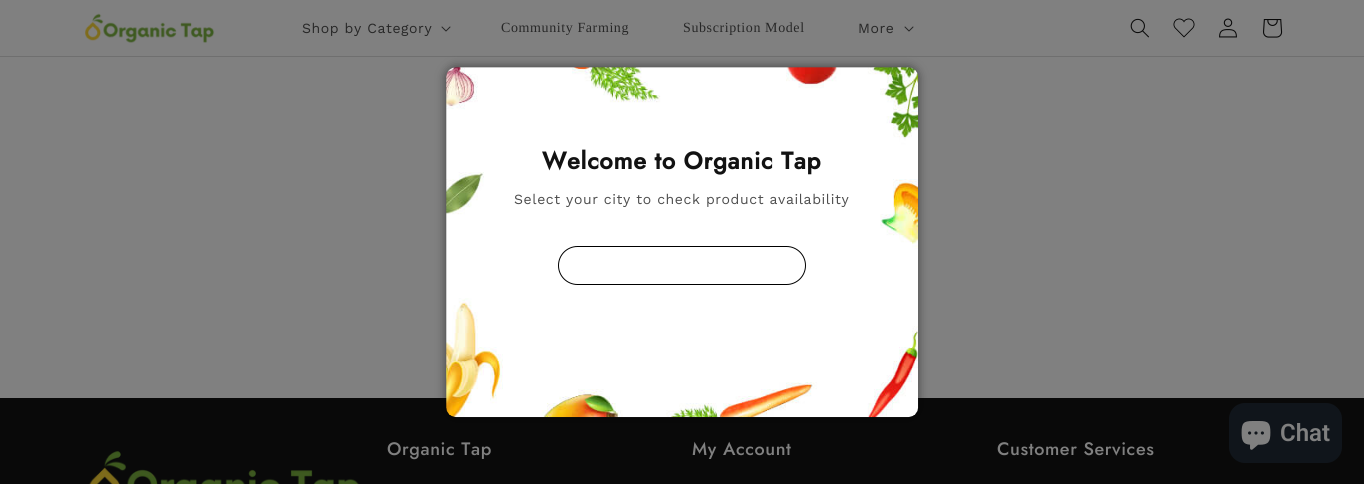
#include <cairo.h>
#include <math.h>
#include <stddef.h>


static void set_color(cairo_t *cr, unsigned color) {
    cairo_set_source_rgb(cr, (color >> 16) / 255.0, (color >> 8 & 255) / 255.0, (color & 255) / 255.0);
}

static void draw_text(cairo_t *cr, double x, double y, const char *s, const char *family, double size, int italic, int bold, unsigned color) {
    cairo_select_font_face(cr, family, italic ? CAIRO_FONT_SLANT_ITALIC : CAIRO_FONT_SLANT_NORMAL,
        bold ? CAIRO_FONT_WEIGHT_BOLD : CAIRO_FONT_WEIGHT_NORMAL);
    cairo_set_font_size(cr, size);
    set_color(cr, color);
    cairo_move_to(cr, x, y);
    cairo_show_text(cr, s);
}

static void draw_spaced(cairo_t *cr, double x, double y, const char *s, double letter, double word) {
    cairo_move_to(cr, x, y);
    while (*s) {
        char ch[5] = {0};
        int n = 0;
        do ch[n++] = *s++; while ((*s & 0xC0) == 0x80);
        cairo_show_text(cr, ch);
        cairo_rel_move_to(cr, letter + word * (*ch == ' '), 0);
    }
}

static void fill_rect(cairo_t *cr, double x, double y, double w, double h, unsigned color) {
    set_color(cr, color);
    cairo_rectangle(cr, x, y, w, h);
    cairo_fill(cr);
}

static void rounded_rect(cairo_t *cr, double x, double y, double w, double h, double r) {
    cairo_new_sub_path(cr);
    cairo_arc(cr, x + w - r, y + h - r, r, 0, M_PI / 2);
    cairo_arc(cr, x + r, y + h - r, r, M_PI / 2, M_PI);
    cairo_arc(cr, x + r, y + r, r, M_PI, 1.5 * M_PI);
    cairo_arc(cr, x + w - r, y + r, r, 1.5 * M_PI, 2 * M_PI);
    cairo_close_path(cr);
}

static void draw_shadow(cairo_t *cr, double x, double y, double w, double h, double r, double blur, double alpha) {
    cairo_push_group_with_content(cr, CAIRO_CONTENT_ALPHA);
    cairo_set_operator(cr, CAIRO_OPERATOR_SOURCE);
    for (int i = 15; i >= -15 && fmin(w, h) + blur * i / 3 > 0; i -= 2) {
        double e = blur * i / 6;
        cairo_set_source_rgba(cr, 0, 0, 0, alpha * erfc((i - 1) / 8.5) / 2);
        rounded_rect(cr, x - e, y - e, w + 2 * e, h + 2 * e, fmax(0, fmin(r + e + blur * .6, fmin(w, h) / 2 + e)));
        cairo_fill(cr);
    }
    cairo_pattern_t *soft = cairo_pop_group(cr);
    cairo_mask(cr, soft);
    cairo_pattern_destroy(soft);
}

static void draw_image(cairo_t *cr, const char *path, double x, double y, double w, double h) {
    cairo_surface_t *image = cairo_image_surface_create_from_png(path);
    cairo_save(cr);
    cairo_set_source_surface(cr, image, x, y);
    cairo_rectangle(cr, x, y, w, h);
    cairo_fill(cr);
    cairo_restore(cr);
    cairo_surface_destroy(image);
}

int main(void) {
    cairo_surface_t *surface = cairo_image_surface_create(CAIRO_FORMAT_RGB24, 1364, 484);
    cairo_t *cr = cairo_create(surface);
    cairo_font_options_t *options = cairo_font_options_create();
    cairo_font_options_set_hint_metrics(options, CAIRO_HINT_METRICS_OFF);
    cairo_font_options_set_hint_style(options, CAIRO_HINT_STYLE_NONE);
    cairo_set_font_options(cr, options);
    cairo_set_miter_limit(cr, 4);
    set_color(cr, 0x808080);
    cairo_paint(cr);
    fill_rect(cr, 0, 56, 1364, 1, 0x6F6F6F);
    draw_image(cr, "assets/img1.png", 85, 13, 130, 30);
    cairo_select_font_face(cr, "Work Sans", CAIRO_FONT_SLANT_NORMAL, CAIRO_FONT_WEIGHT_NORMAL);
    cairo_set_font_size(cr, 14);
    set_color(cr, 0x272727);
    draw_spaced(cr, 302, 33, "Shop by Category", 0.6, 0);
    draw_image(cr, "assets/img2.png", 441, 26, 10, 6);
    cairo_select_font_face(cr, "Liberation Serif", CAIRO_FONT_SLANT_NORMAL, CAIRO_FONT_WEIGHT_NORMAL);
    draw_spaced(cr, 501, 32, "Community Farming", 0.6, 0);
    draw_spaced(cr, 683, 32, "Subscription Model", 0.6, 0);
    cairo_select_font_face(cr, "Work Sans", CAIRO_FONT_SLANT_NORMAL, CAIRO_FONT_WEIGHT_NORMAL);
    draw_spaced(cr, 858, 33, "More", 0.6, 0);
    draw_image(cr, "assets/img2.png", 904, 26, 10, 6);
    draw_image(cr, "assets/img3.png", 1130, 18, 19, 20);
    draw_image(cr, "assets/img4.png", 1173, 18, 22, 20);
    draw_image(cr, "assets/img5.png", 1219, 18, 18, 20);
    draw_image(cr, "assets/img6.png", 1263, 19, 20, 19);
    fill_rect(cr, 0, 398, 1364, 86, 0x090909);
    set_color(cr, 0x000000);
    draw_shadow(cr, 446, 67, 472, 350, 10, 5, 0.5);
    draw_image(cr, "assets/img7.png", 446, 67, 473, 351);
    cairo_select_font_face(cr, "Jost", CAIRO_FONT_SLANT_NORMAL, CAIRO_FONT_WEIGHT_BOLD);
    cairo_set_font_size(cr, 24);
    set_color(cr, 0x121212);
    draw_spaced(cr, 542, 169, "Welcome to Organic Tap", 0.6, 0);
    cairo_select_font_face(cr, "Work Sans", CAIRO_FONT_SLANT_NORMAL, CAIRO_FONT_WEIGHT_NORMAL);
    cairo_set_font_size(cr, 14);
    set_color(cr, 0x4D4D4D);
    draw_spaced(cr, 514, 204, "Select your city to check product availability", 0.6, 0);
    rounded_rect(cr, 558.5, 246.5, 247, 38, 19);
    set_color(cr, 0x000000);
    cairo_set_line_width(cr, 1);
    cairo_stroke(cr);
    set_color(cr, 0x10151B);
    rounded_rect(cr, 1229, 403, 113, 60, 16);
    cairo_fill(cr);
    draw_image(cr, "assets/img8.png", 1241, 421, 30, 29);
    draw_text(cr, 1280, 441, "Chat", "Roboto SemiBold", 24, 0, 0, 0x808080);
    cairo_select_font_face(cr, "Jost Medium", CAIRO_FONT_SLANT_NORMAL, CAIRO_FONT_WEIGHT_NORMAL);
    cairo_set_font_size(cr, 18);
    draw_spaced(cr, 387, 455, "Organic Tap", 0.6, 0);
    draw_spaced(cr, 692, 455, "My Account", 0.6, 0);
    draw_spaced(cr, 997, 455, "Customer Services", 0.6, 0);
    draw_image(cr, "assets/img9.png", 89, 451, 270, 33);
    cairo_surface_write_to_png(surface, "output.png");
    cairo_font_options_destroy(options);
    cairo_destroy(cr);
    cairo_surface_destroy(surface);
    return 0;
}
